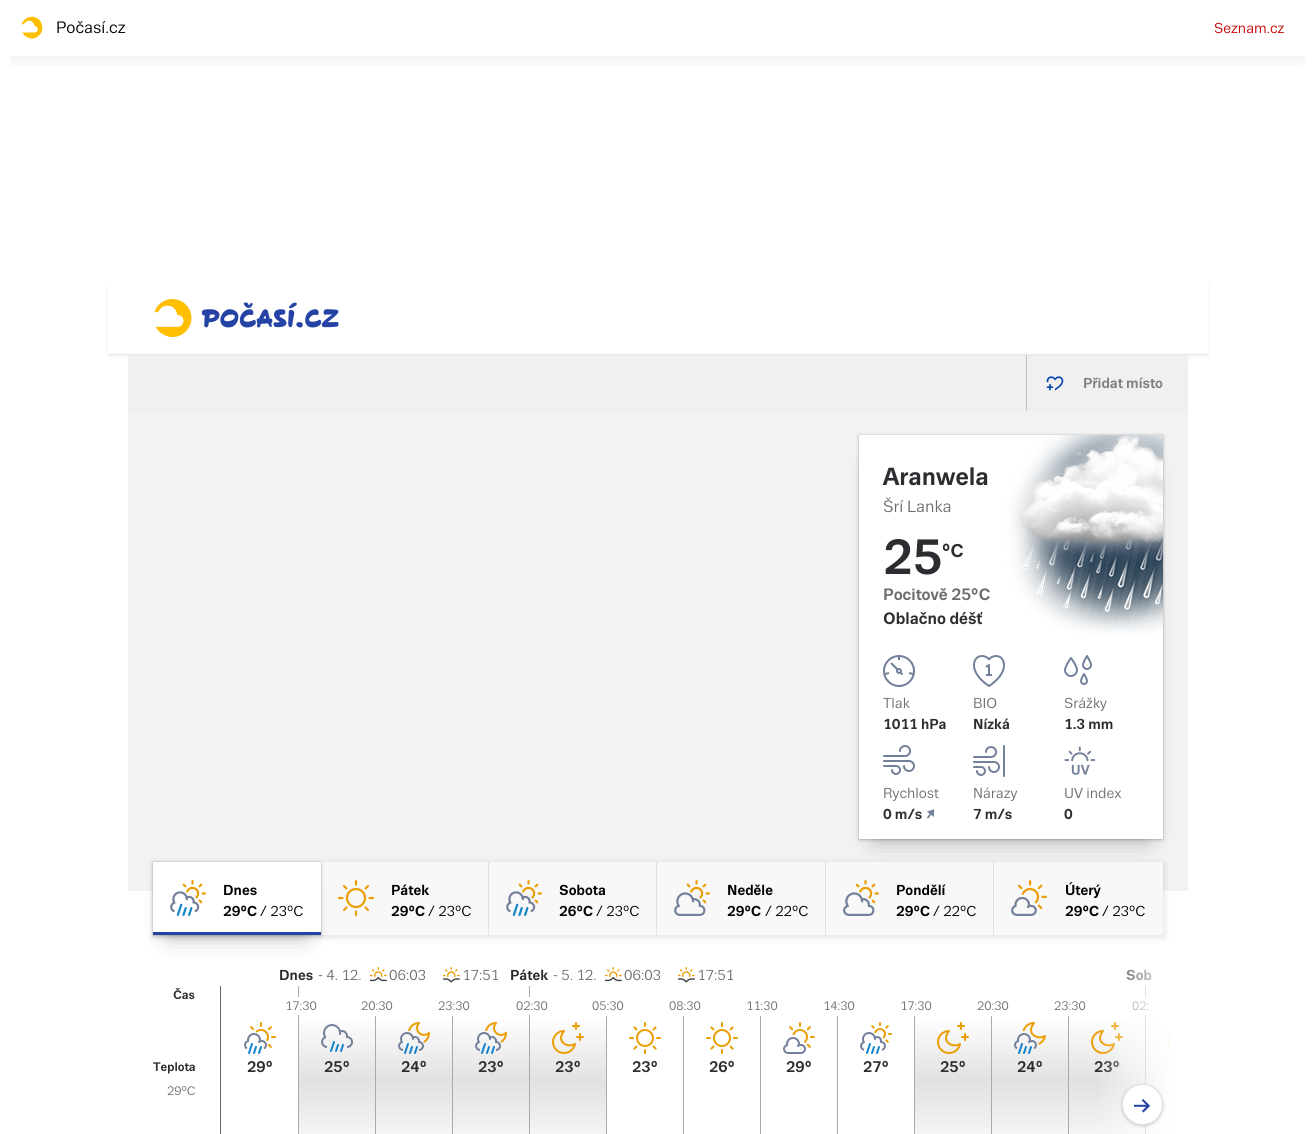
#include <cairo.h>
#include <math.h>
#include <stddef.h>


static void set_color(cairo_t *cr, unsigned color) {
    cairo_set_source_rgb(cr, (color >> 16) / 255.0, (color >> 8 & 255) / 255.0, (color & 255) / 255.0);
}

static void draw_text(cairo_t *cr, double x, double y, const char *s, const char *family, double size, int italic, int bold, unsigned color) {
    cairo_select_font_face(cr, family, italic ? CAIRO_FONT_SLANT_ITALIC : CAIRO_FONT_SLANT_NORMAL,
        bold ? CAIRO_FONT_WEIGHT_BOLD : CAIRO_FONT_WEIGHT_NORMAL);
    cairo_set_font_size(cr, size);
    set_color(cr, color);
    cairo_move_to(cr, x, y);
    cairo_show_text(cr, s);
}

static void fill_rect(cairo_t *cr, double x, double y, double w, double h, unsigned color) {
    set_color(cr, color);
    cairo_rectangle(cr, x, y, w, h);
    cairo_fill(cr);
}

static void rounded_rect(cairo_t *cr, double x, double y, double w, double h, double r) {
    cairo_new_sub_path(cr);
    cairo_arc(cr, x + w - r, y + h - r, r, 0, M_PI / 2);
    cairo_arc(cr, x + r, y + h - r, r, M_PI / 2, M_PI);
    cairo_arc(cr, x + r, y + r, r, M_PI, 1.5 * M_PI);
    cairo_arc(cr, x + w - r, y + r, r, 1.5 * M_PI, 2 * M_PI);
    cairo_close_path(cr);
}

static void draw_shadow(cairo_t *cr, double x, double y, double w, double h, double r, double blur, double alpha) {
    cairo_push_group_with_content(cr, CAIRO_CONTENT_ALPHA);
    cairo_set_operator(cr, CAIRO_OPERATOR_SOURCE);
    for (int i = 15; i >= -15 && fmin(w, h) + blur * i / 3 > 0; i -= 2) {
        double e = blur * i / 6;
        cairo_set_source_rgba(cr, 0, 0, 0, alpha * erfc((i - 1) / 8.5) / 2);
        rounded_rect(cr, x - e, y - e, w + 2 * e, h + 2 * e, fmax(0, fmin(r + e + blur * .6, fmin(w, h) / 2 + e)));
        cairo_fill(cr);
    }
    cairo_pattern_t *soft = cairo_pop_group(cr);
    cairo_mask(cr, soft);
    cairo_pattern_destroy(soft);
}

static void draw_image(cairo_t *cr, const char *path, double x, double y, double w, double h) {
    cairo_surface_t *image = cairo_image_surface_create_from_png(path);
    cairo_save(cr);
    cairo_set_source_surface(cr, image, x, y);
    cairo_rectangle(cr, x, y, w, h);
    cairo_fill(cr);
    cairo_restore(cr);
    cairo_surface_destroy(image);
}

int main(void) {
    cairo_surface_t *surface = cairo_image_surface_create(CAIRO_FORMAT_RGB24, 1315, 1134);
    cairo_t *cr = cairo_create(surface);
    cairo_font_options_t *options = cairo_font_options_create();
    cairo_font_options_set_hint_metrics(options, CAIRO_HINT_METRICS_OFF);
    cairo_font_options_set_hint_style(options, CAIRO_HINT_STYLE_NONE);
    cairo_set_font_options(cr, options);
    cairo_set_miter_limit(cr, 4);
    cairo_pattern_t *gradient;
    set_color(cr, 0xFFFFFF);
    cairo_paint(cr);
    cairo_save(cr);
    cairo_rectangle(cr, 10, 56, 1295, 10);
    cairo_clip(cr);
    set_color(cr, 0x000000);
    draw_shadow(cr, 12, 20, 1291, 32, 0, 15, 0.12);
    cairo_restore(cr);
    draw_image(cr, "assets/img1.png", 21, 16, 22, 23);
    draw_text(cr, 56, 33, "Počasí.cz", "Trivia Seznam", 16, 0, 0, 0x000000);
    draw_text(cr, 1214, 33, "Seznam.cz", "Trivia Seznam", 14, 0, 0, 0xCC0000);
    cairo_save(cr);
    cairo_set_fill_rule(cr, CAIRO_FILL_RULE_EVEN_ODD);
    cairo_new_path(cr);
    cairo_move_to(cr, 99, 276);
    cairo_line_to(cr, 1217, 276);
    cairo_line_to(cr, 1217, 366);
    cairo_line_to(cr, 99, 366);
    cairo_close_path(cr);
    cairo_move_to(cr, 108, 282);
    cairo_line_to(cr, 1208, 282);
    cairo_line_to(cr, 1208, 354);
    cairo_line_to(cr, 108, 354);
    cairo_close_path(cr);
    cairo_clip(cr);
    set_color(cr, 0x4E4E4E);
    draw_shadow(cr, 108, 285, 1100, 72, 0, 2.5, 0.08);
    cairo_restore(cr);
    fill_rect(cr, 108, 354, 1100, 1, 0xE7E7E7);
    draw_image(cr, "assets/img2.png", 154, 299, 185, 38);
    fill_rect(cr, 128, 355, 1060, 56, 0xF0F0F0);
    fill_rect(cr, 1026, 355, 1, 56, 0xC0C0C0);
    draw_image(cr, "assets/img3.png", 1046, 376, 18, 15);
    draw_text(cr, 1083, 388, "Přidat místo", "Trivia Seznam", 14, 0, 1, 0x808080);
    fill_rect(cr, 128, 411, 1060, 480, 0xF2F2F2);
    set_color(cr, 0x000000);
    draw_shadow(cr, 153, 863, 1012, 75, 0, 3, 0.1);
    fill_rect(cr, 321, 862, 842, 73, 0xF8F8F8);
    fill_rect(cr, 993, 862, 1, 73, 0xE1E1E1);
    set_color(cr, 0x000000);
    draw_shadow(cr, 875, 467, 272, 372, 0, 12, 0.3);
    draw_shadow(cr, 859, 436, 304, 404, 0, 2, 0.2);
    draw_shadow(cr, 859, 435, 304, 404, 0, 0.5, 0.2);
    fill_rect(cr, 859, 435, 304, 404, 0xFFFFFF);
    draw_text(cr, 883, 485, "Aranwela", "Trivia Seznam", 24, 0, 1, 0x2D2D31);
    draw_text(cr, 883, 512, "Šrí Lanka", "Trivia Seznam", 16, 0, 0, 0x6D6D6D);
    draw_image(cr, "assets/img4.png", 1006, 435, 157, 200);
    draw_text(cr, 883, 574, "25", "Trivia Seznam", 48, 0, 1, 0x2D2D31);
    draw_text(cr, 942, 557, "°C", "Trivia Seznam", 18, 0, 1, 0x2D2D31);
    draw_text(cr, 883, 600, "Pocitově 25°C", "Trivia Seznam", 16, 0, 1, 0x6D6D6D);
    draw_text(cr, 883, 624, "Oblačno déšť", "Trivia Seznam", 16, 0, 1, 0x2D2D31);
    draw_image(cr, "assets/img5.png", 883, 655, 32, 32);
    draw_text(cr, 883, 708, "Tlak", "Trivia Seznam", 14, 0, 0, 0x6D6D6D);
    draw_text(cr, 883, 729, "1011 hPa", "Trivia Seznam", 14, 0, 1, 0x2D2D31);
    draw_image(cr, "assets/img6.png", 973, 655, 32, 32);
    draw_text(cr, 973, 708, "BIO", "Trivia Seznam", 14, 0, 0, 0x6D6D6D);
    draw_text(cr, 973, 729, "Nízká", "Trivia Seznam", 14, 0, 1, 0x2D2D31);
    draw_image(cr, "assets/img7.png", 1064, 655, 28, 30);
    draw_text(cr, 1064, 708, "Srážky", "Trivia Seznam", 14, 0, 0, 0x6D6D6D);
    draw_text(cr, 1064, 729, "1.3 mm", "Trivia Seznam", 14, 0, 1, 0x2D2D31);
    draw_image(cr, "assets/img8.png", 883, 745, 32, 30);
    draw_text(cr, 883, 798, "Rychlost", "Trivia Seznam", 14, 0, 0, 0x6D6D6D);
    draw_text(cr, 883, 819, "0 m/s", "Trivia Seznam", 14, 0, 1, 0x2D2D31);
    draw_image(cr, "assets/img9.png", 926, 809, 9, 10);
    draw_image(cr, "assets/img10.png", 973, 745, 32, 32);
    draw_text(cr, 973, 798, "Nárazy", "Trivia Seznam", 14, 0, 0, 0x6D6D6D);
    draw_text(cr, 973, 819, "7 m/s", "Trivia Seznam", 14, 0, 1, 0x2D2D31);
    draw_image(cr, "assets/img11.png", 1064, 746, 32, 29);
    draw_text(cr, 1064, 798, "UV index", "Trivia Seznam", 14, 0, 0, 0x6D6D6D);
    draw_text(cr, 1064, 819, "0", "Trivia Seznam", 14, 0, 1, 0x2D2D31);
    draw_image(cr, "assets/img13.png", 338, 880, 36, 36);
    set_color(cr, 0x000000);
    draw_shadow(cr, 169, 894, 136, 41, 0, 12, 0.3);
    draw_shadow(cr, 153, 863, 168, 73, 0, 2, 0.2);
    draw_shadow(cr, 153, 862, 168, 73, 0, 0.5, 0.2);
    fill_rect(cr, 153, 862, 168, 70, 0xFFFFFF);
    fill_rect(cr, 153, 932, 168, 3, 0x2543A5);
    draw_image(cr, "assets/img12.png", 170, 880, 36, 36);
    draw_text(cr, 223, 895, "Dnes", "Trivia Seznam", 14, 0, 1, 0x000000);
    draw_text(cr, 223, 916, "29°C", "Trivia Seznam", 14, 0, 1, 0x000000);
    draw_text(cr, 260, 916, "/ 23°C", "Trivia Seznam", 14, 0, 0, 0x000000);
    fill_rect(cr, 488, 862, 1, 73, 0xE1E1E1);
    draw_text(cr, 391, 895, "Pátek", "Trivia Seznam", 14, 0, 1, 0x000000);
    draw_text(cr, 391, 916, "29°C", "Trivia Seznam", 14, 0, 1, 0x000000);
    draw_text(cr, 428, 916, "/ 23°C", "Trivia Seznam", 14, 0, 0, 0x000000);
    fill_rect(cr, 656, 862, 1, 73, 0xE1E1E1);
    draw_image(cr, "assets/img14.png", 506, 880, 36, 36);
    draw_text(cr, 559, 895, "Sobota", "Trivia Seznam", 14, 0, 1, 0x000000);
    draw_text(cr, 559, 916, "26°C", "Trivia Seznam", 14, 0, 1, 0x000000);
    draw_text(cr, 596, 916, "/ 23°C", "Trivia Seznam", 14, 0, 0, 0x000000);
    fill_rect(cr, 825, 862, 1, 73, 0xE1E1E1);
    draw_image(cr, "assets/img15.png", 674, 880, 36, 36);
    draw_text(cr, 727, 895, "Neděle", "Trivia Seznam", 14, 0, 1, 0x000000);
    draw_text(cr, 727, 916, "29°C", "Trivia Seznam", 14, 0, 1, 0x000000);
    draw_text(cr, 765, 916, "/ 22°C", "Trivia Seznam", 14, 0, 0, 0x000000);
    draw_image(cr, "assets/img15.png", 843, 880, 36, 36);
    draw_text(cr, 896, 895, "Pondělí", "Trivia Seznam", 14, 0, 1, 0x000000);
    draw_text(cr, 896, 916, "29°C", "Trivia Seznam", 14, 0, 1, 0x000000);
    draw_text(cr, 933, 916, "/ 22°C", "Trivia Seznam", 14, 0, 0, 0x000000);
    draw_image(cr, "assets/img16.png", 1011, 880, 36, 36);
    draw_text(cr, 1065, 895, "Úterý", "Trivia Seznam", 14, 0, 1, 0x000000);
    draw_text(cr, 1065, 916, "29°C", "Trivia Seznam", 14, 0, 1, 0x000000);
    draw_text(cr, 1102, 916, "/ 23°C", "Trivia Seznam", 14, 0, 0, 0x000000);
    fill_rect(cr, 220, 986, 1, 148, 0x656565);
    draw_text(cr, 173, 999, "Čas", "Trivia Seznam", 12, 0, 1, 0x2D2D31);
    draw_text(cr, 153, 1071, "Teplota", "Trivia Seznam", 12, 0, 1, 0x2D2D31);
    draw_text(cr, 167, 1095, "29°C", "Trivia Seznam", 12, 0, 0, 0x6D6D6D);
    draw_text(cr, 279, 980, "Dnes", "Trivia Seznam", 14, 0, 1, 0x2D2D31);
    draw_text(cr, 318, 980, "- 4. 12.", "Trivia Seznam", 14, 0, 0, 0x6D6D6D);
    draw_image(cr, "assets/img17.png", 370, 967, 17, 15);
    draw_text(cr, 389, 980, "06:03", "Trivia Seznam", 14, 0, 0, 0x6D6D6D);
    draw_image(cr, "assets/img18.png", 443, 967, 17, 16);
    draw_text(cr, 462, 980, "17:51", "Trivia Seznam", 14, 0, 0, 0x6D6D6D);
    fill_rect(cr, 298, 986, 1, 148, 0xAAAAAA);
    fill_rect(cr, 298, 997, 1, 18, 0xFFFFFF);
    draw_text(cr, 285, 1010, "17:30", "Trivia Seznam", 12, 0, 0, 0x6D6D6D);
    gradient = cairo_pattern_create_linear(337, 1016, 337, 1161);
    cairo_pattern_add_color_stop_rgba(gradient, 0, 1, 1, 1, 1);
    cairo_pattern_add_color_stop_rgba(gradient, 0.45, 0.882, 0.882, 0.882, 1);
    cairo_pattern_add_color_stop_rgba(gradient, 1, 1, 1, 1, 1);
    cairo_set_source(cr, gradient);
    cairo_pattern_destroy(gradient);
    cairo_rectangle(cr, 299, 1021, 76, 113);
    cairo_fill(cr);
    draw_image(cr, "assets/img19.png", 321, 1024, 32, 28);
    draw_text(cr, 324, 1072, "25°", "Trivia Seznam", 15, 0, 1, 0x2D2D31);
    draw_text(cr, 510, 980, "Pátek", "Trivia Seznam", 14, 0, 1, 0x2D2D31);
    draw_text(cr, 553, 980, "- 5. 12.", "Trivia Seznam", 14, 0, 0, 0x6D6D6D);
    draw_image(cr, "assets/img17.png", 605, 967, 17, 15);
    draw_text(cr, 624, 980, "06:03", "Trivia Seznam", 14, 0, 0, 0x6D6D6D);
    draw_image(cr, "assets/img18.png", 678, 967, 17, 16);
    draw_text(cr, 697, 980, "17:51", "Trivia Seznam", 14, 0, 0, 0x6D6D6D);
    fill_rect(cr, 529, 986, 1, 148, 0xAAAAAA);
    fill_rect(cr, 529, 997, 1, 18, 0xFFFFFF);
    draw_text(cr, 516, 1010, "02:30", "Trivia Seznam", 12, 0, 0, 0x6D6D6D);
    gradient = cairo_pattern_create_linear(568, 1016, 568, 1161);
    cairo_pattern_add_color_stop_rgba(gradient, 0, 1, 1, 1, 1);
    cairo_pattern_add_color_stop_rgba(gradient, 0.45, 0.882, 0.882, 0.882, 1);
    cairo_pattern_add_color_stop_rgba(gradient, 1, 1, 1, 1, 1);
    cairo_set_source(cr, gradient);
    cairo_pattern_destroy(gradient);
    cairo_rectangle(cr, 530, 1021, 76, 113);
    cairo_fill(cr);
    draw_image(cr, "assets/img20.png", 552, 1022, 32, 32);
    draw_text(cr, 555, 1072, "23°", "Trivia Seznam", 15, 0, 1, 0x2D2D31);
    draw_text(cr, 1126, 980, "Sob", "Trivia Seznam", 14, 0, 1, 0x2D2D31);
    fill_rect(cr, 1145, 986, 1, 148, 0xAAAAAA);
    fill_rect(cr, 1145, 997, 1, 18, 0xFFFFFF);
    draw_text(cr, 1132, 1010, "02:", "Trivia Seznam", 12, 0, 0, 0x6D6D6D);
    gradient = cairo_pattern_create_linear(1184, 1016, 1184, 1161);
    cairo_pattern_add_color_stop_rgba(gradient, 0, 1, 1, 1, 1);
    cairo_pattern_add_color_stop_rgba(gradient, 0.45, 0.882, 0.882, 0.882, 1);
    cairo_pattern_add_color_stop_rgba(gradient, 1, 1, 1, 1, 1);
    cairo_set_source(cr, gradient);
    cairo_pattern_destroy(gradient);
    cairo_rectangle(cr, 1146, 1021, 27, 113);
    cairo_fill(cr);
    draw_image(cr, "assets/img21.png", 1168, 1032, 5, 20);
    draw_image(cr, "assets/img22.png", 244, 1022, 32, 32);
    draw_text(cr, 247, 1072, "29°", "Trivia Seznam", 15, 0, 1, 0x2D2D31);
    draw_text(cr, 361, 1010, "20:30", "Trivia Seznam", 12, 0, 0, 0x6D6D6D);
    fill_rect(cr, 375, 1016, 1, 118, 0xAAAAAA);
    gradient = cairo_pattern_create_linear(414, 1016, 414, 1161);
    cairo_pattern_add_color_stop_rgba(gradient, 0, 1, 1, 1, 1);
    cairo_pattern_add_color_stop_rgba(gradient, 0.45, 0.882, 0.882, 0.882, 1);
    cairo_pattern_add_color_stop_rgba(gradient, 1, 1, 1, 1, 1);
    cairo_set_source(cr, gradient);
    cairo_pattern_destroy(gradient);
    cairo_rectangle(cr, 376, 1021, 76, 113);
    cairo_fill(cr);
    draw_image(cr, "assets/img23.png", 398, 1022, 32, 32);
    draw_text(cr, 401, 1072, "24°", "Trivia Seznam", 15, 0, 1, 0x2D2D31);
    draw_text(cr, 438, 1010, "23:30", "Trivia Seznam", 12, 0, 0, 0x6D6D6D);
    fill_rect(cr, 452, 1016, 1, 118, 0xAAAAAA);
    gradient = cairo_pattern_create_linear(491, 1016, 491, 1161);
    cairo_pattern_add_color_stop_rgba(gradient, 0, 1, 1, 1, 1);
    cairo_pattern_add_color_stop_rgba(gradient, 0.45, 0.882, 0.882, 0.882, 1);
    cairo_pattern_add_color_stop_rgba(gradient, 1, 1, 1, 1, 1);
    cairo_set_source(cr, gradient);
    cairo_pattern_destroy(gradient);
    cairo_rectangle(cr, 453, 1021, 76, 113);
    cairo_fill(cr);
    draw_image(cr, "assets/img23.png", 475, 1022, 32, 32);
    draw_text(cr, 478, 1072, "23°", "Trivia Seznam", 15, 0, 1, 0x2D2D31);
    draw_text(cr, 592, 1010, "05:30", "Trivia Seznam", 12, 0, 0, 0x6D6D6D);
    fill_rect(cr, 606, 1016, 1, 118, 0xAAAAAA);
    draw_image(cr, "assets/img24.png", 629, 1022, 32, 32);
    draw_text(cr, 632, 1072, "23°", "Trivia Seznam", 15, 0, 1, 0x2D2D31);
    draw_text(cr, 669, 1010, "08:30", "Trivia Seznam", 12, 0, 0, 0x6D6D6D);
    fill_rect(cr, 683, 1016, 1, 118, 0xAAAAAA);
    draw_image(cr, "assets/img24.png", 706, 1022, 32, 32);
    draw_text(cr, 709, 1072, "26°", "Trivia Seznam", 15, 0, 1, 0x2D2D31);
    draw_text(cr, 746, 1010, "11:30", "Trivia Seznam", 12, 0, 0, 0x6D6D6D);
    fill_rect(cr, 760, 1016, 1, 118, 0xAAAAAA);
    draw_image(cr, "assets/img25.png", 783, 1022, 32, 32);
    draw_text(cr, 786, 1072, "29°", "Trivia Seznam", 15, 0, 1, 0x2D2D31);
    draw_text(cr, 823, 1010, "14:30", "Trivia Seznam", 12, 0, 0, 0x6D6D6D);
    fill_rect(cr, 837, 1016, 1, 118, 0xAAAAAA);
    draw_image(cr, "assets/img26.png", 860, 1022, 32, 32);
    draw_text(cr, 863, 1072, "27°", "Trivia Seznam", 15, 0, 1, 0x2D2D31);
    draw_text(cr, 900, 1010, "17:30", "Trivia Seznam", 12, 0, 0, 0x6D6D6D);
    fill_rect(cr, 914, 1016, 1, 118, 0xAAAAAA);
    gradient = cairo_pattern_create_linear(953, 1016, 953, 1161);
    cairo_pattern_add_color_stop_rgba(gradient, 0, 1, 1, 1, 1);
    cairo_pattern_add_color_stop_rgba(gradient, 0.45, 0.882, 0.882, 0.882, 1);
    cairo_pattern_add_color_stop_rgba(gradient, 1, 1, 1, 1, 1);
    cairo_set_source(cr, gradient);
    cairo_pattern_destroy(gradient);
    cairo_rectangle(cr, 915, 1021, 76, 113);
    cairo_fill(cr);
    draw_image(cr, "assets/img20.png", 937, 1022, 32, 32);
    draw_text(cr, 940, 1072, "25°", "Trivia Seznam", 15, 0, 1, 0x2D2D31);
    draw_text(cr, 977, 1010, "20:30", "Trivia Seznam", 12, 0, 0, 0x6D6D6D);
    fill_rect(cr, 991, 1016, 1, 118, 0xAAAAAA);
    gradient = cairo_pattern_create_linear(1030, 1016, 1030, 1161);
    cairo_pattern_add_color_stop_rgba(gradient, 0, 1, 1, 1, 1);
    cairo_pattern_add_color_stop_rgba(gradient, 0.45, 0.882, 0.882, 0.882, 1);
    cairo_pattern_add_color_stop_rgba(gradient, 1, 1, 1, 1, 1);
    cairo_set_source(cr, gradient);
    cairo_pattern_destroy(gradient);
    cairo_rectangle(cr, 992, 1021, 76, 113);
    cairo_fill(cr);
    draw_image(cr, "assets/img27.png", 1014, 1022, 32, 32);
    draw_text(cr, 1017, 1072, "24°", "Trivia Seznam", 15, 0, 1, 0x2D2D31);
    draw_text(cr, 1054, 1010, "23:30", "Trivia Seznam", 12, 0, 0, 0x6D6D6D);
    fill_rect(cr, 1068, 1016, 1, 118, 0xAAAAAA);
    gradient = cairo_pattern_create_linear(1107, 1016, 1107, 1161);
    cairo_pattern_add_color_stop_rgba(gradient, 0, 1, 1, 1, 1);
    cairo_pattern_add_color_stop_rgba(gradient, 0.45, 0.882, 0.882, 0.882, 1);
    cairo_pattern_add_color_stop_rgba(gradient, 1, 1, 1, 1, 1);
    cairo_set_source(cr, gradient);
    cairo_pattern_destroy(gradient);
    cairo_rectangle(cr, 1069, 1021, 76, 113);
    cairo_fill(cr);
    draw_image(cr, "assets/img20.png", 1091, 1022, 32, 32);
    draw_text(cr, 1094, 1072, "23°", "Trivia Seznam", 15, 0, 1, 0x2D2D31);
    gradient = cairo_pattern_create_linear(1097, 1105, 1173, 1105);
    cairo_pattern_add_color_stop_rgba(gradient, 0, 1, 1, 1, 0);
    cairo_pattern_add_color_stop_rgba(gradient, 1, 1, 1, 1, 1);
    cairo_set_source(cr, gradient);
    cairo_pattern_destroy(gradient);
    cairo_rectangle(cr, 1099, 969, 74, 165);
    cairo_fill(cr);
    set_color(cr, 0x000000);
    draw_shadow(cr, 1122, 1085, 41, 41, 20.5, 1.5, 0.2);
    set_color(cr, 0xFFFFFF);
    cairo_arc(cr, 1142.5, 1104.5, 20, 0, 2 * M_PI);
    cairo_fill_preserve(cr);
    set_color(cr, 0xE1E1E1);
    cairo_set_line_width(cr, 1);
    cairo_stroke(cr);
    draw_image(cr, "assets/img28.png", 1134, 1099, 16, 14);
    cairo_surface_write_to_png(surface, "output.png");
    cairo_font_options_destroy(options);
    cairo_destroy(cr);
    cairo_surface_destroy(surface);
    return 0;
}
